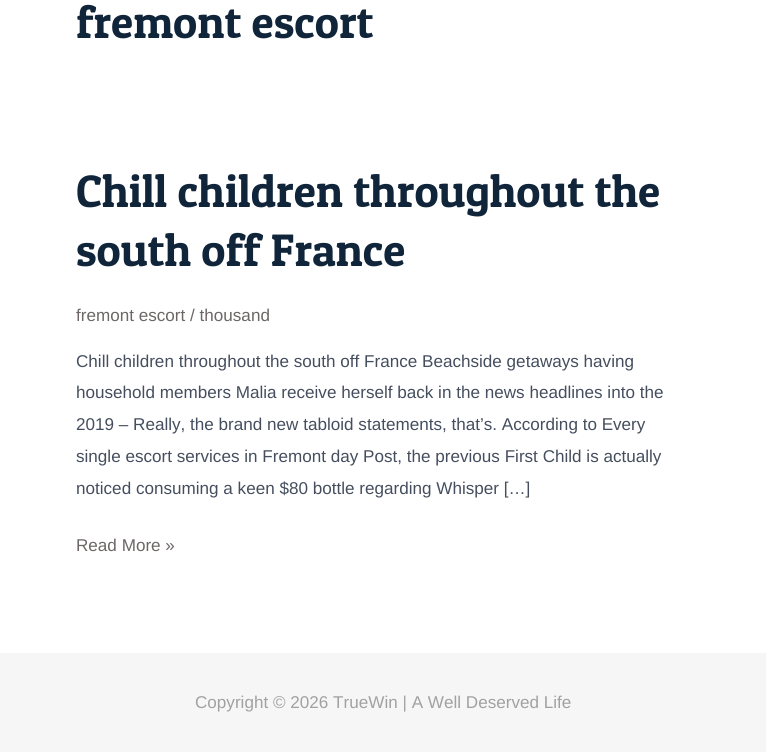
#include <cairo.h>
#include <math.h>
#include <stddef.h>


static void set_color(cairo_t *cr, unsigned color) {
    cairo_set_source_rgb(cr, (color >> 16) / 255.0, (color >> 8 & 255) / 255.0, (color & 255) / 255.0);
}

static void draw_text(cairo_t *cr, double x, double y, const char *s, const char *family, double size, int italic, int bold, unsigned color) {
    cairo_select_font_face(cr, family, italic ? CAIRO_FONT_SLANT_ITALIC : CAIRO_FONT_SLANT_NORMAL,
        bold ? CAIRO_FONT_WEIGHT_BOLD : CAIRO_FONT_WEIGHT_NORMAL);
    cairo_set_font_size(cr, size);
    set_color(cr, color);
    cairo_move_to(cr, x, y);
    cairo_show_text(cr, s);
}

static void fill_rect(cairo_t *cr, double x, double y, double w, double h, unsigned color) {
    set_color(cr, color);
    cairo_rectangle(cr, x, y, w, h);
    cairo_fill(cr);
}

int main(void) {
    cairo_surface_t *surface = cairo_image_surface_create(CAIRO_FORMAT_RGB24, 766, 752);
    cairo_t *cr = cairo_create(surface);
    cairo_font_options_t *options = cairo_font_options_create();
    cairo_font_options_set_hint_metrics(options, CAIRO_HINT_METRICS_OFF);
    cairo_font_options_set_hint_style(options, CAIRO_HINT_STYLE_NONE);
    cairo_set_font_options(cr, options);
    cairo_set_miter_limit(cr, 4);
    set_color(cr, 0xFFFFFF);
    cairo_paint(cr);
    draw_text(cr, 76, 38, "fremont escort", "Patua One", 45.6, 0, 0, 0x10253A);
    draw_text(cr, 76, 207, "Chill children throughout the", "Patua One", 45.6, 0, 0, 0x10253A);
    draw_text(cr, 76, 266, "south off France", "Patua One", 45.6, 0, 0, 0x10253A);
    draw_text(cr, 76, 321, "fremont escort / thousand", "Liberation Sans", 17.1, 0, 0, 0x6C6666);
    draw_text(cr, 76, 367, "Chill children throughout the south off France Beachside getaways having", "Liberation Sans", 17.1, 0, 0, 0x454E5E);
    draw_text(cr, 76, 398, "household members Malia receive herself back in the news headlines into the", "Liberation Sans", 17.1, 0, 0, 0x454E5E);
    draw_text(cr, 76, 430, "2019 – Really, the brand new tabloid statements, that’s. According to Every", "Liberation Sans", 17.1, 0, 0, 0x454E5E);
    draw_text(cr, 76, 462, "single escort services in Fremont day Post, the previous First Child is actually", "Liberation Sans", 17.1, 0, 0, 0x454E5E);
    draw_text(cr, 76, 494, "noticed consuming a keen $80 bottle regarding Whisper […]", "Liberation Sans", 17.1, 0, 0, 0x454E5E);
    draw_text(cr, 76, 551, "Read More »", "Liberation Sans", 17.1, 0, 0, 0x6C6666);
    fill_rect(cr, 0, 653, 766, 99, 0xF6F6F6);
    draw_text(cr, 195, 708, "Copyright © 2026 TrueWin | A Well Deserved Life", "Liberation Sans", 17.1, 0, 0, 0xA1A1A1);
    cairo_surface_write_to_png(surface, "output.png");
    cairo_font_options_destroy(options);
    cairo_destroy(cr);
    cairo_surface_destroy(surface);
    return 0;
}
